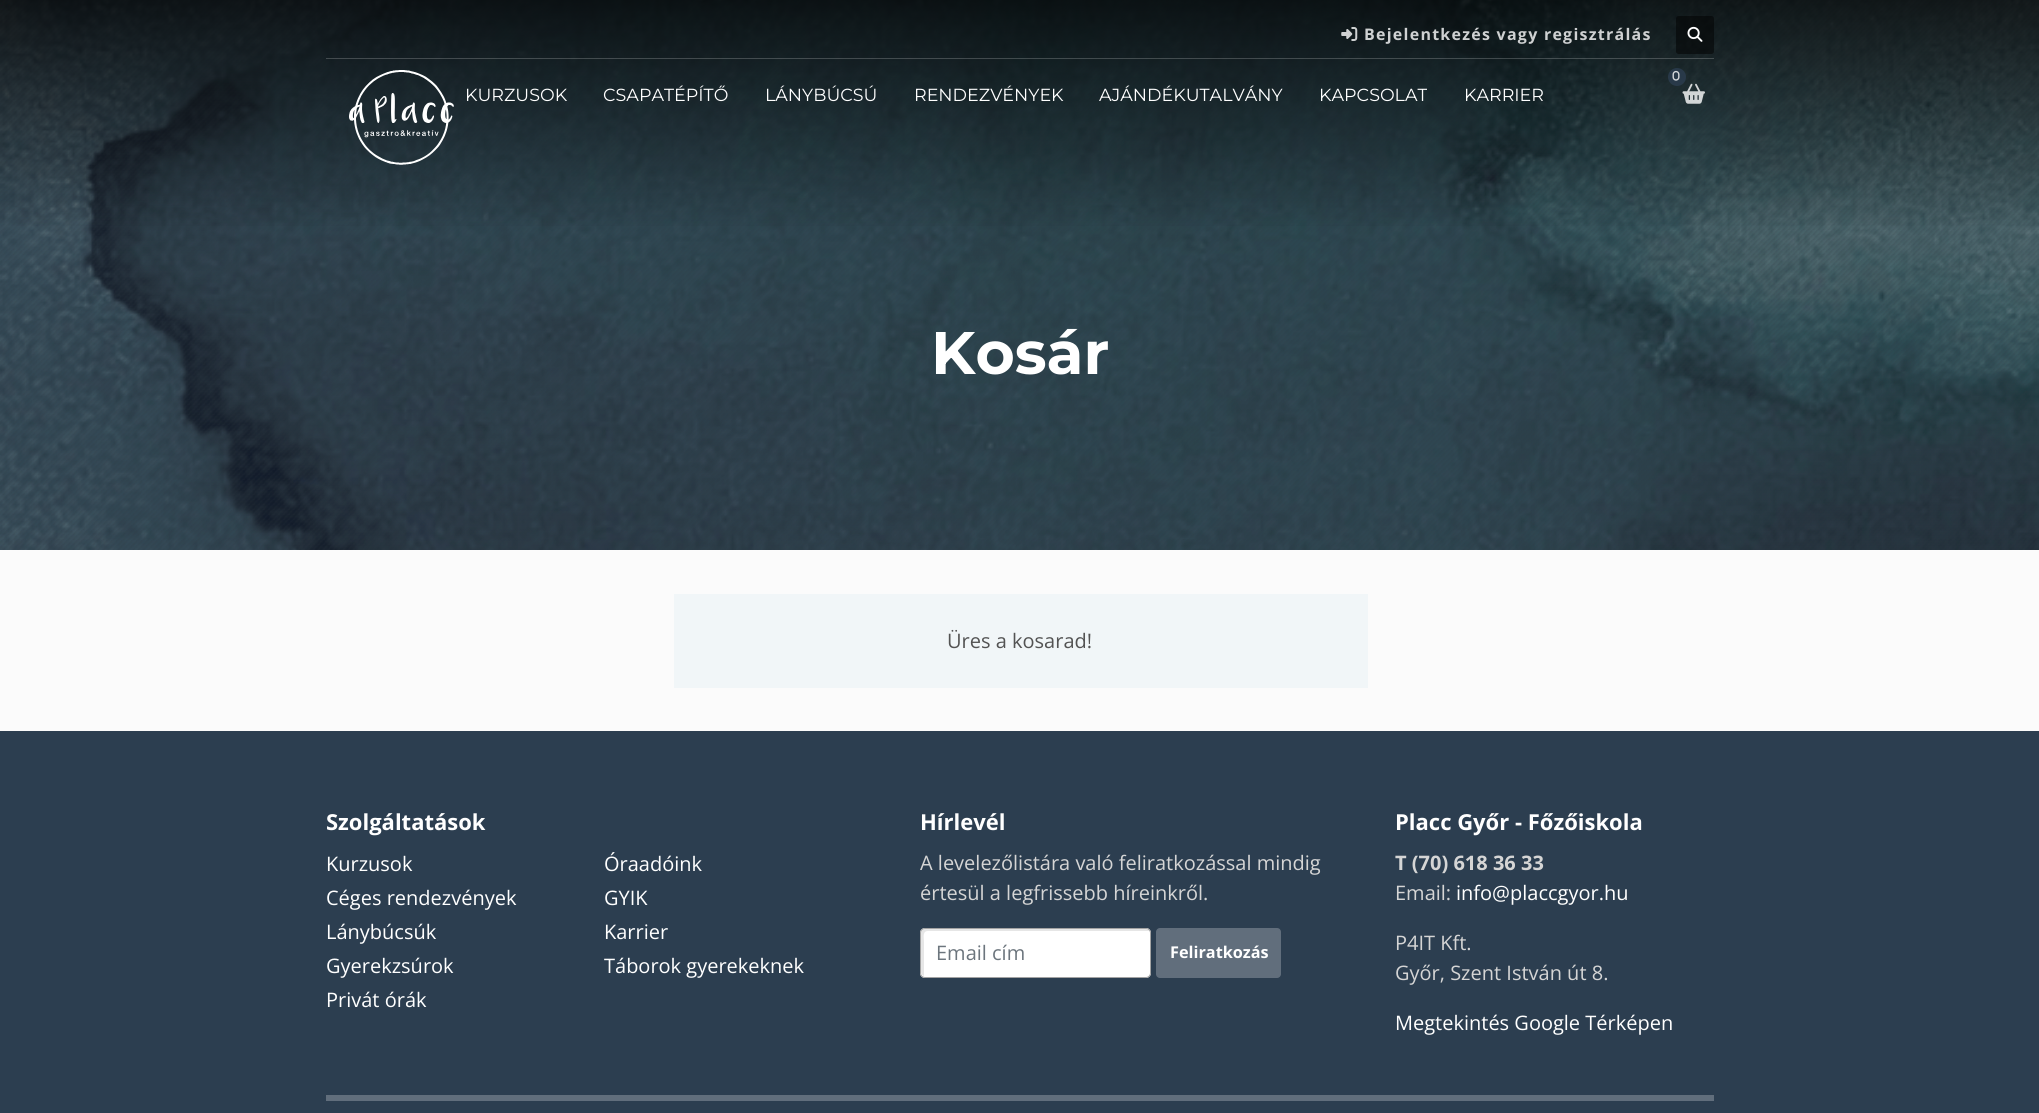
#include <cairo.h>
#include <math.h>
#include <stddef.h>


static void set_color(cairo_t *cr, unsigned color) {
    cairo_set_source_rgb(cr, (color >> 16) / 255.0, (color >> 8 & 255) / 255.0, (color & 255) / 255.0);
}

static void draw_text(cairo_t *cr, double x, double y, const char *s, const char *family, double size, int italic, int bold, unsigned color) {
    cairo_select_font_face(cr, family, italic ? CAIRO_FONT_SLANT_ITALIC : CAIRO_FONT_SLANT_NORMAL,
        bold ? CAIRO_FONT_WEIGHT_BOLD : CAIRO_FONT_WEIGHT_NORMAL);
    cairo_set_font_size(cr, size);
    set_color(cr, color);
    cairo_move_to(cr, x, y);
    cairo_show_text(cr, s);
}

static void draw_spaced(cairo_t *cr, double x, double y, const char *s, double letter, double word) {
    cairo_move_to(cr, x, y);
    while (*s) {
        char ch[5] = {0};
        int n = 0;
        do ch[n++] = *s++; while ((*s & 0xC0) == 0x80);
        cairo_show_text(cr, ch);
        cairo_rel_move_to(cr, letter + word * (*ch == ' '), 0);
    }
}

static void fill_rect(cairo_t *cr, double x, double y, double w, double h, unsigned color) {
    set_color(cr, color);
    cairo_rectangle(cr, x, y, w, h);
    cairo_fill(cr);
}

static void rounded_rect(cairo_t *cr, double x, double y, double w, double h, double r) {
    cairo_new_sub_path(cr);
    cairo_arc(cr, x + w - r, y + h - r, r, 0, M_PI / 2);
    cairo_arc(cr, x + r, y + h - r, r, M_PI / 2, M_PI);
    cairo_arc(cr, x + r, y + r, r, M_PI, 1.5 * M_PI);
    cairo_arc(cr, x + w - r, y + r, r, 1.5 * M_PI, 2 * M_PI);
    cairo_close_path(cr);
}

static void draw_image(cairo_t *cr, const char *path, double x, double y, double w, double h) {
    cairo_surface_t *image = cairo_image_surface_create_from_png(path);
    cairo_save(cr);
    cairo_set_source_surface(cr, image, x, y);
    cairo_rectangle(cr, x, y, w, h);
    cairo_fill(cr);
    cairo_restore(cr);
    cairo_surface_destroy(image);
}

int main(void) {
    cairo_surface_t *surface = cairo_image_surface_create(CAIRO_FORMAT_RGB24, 2039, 1113);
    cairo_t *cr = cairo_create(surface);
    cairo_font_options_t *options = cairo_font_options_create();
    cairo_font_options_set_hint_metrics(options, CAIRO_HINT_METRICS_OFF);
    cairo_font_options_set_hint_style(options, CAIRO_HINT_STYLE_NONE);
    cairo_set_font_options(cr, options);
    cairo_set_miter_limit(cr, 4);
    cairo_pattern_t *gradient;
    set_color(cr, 0xFBFBFB);
    cairo_paint(cr);
    draw_image(cr, "assets/img6.png", 0, 0, 2039, 550);
    draw_image(cr, "assets/img7.png", 0, 0, 2039, 550);
    gradient = cairo_pattern_create_linear(1020, 0, 1020, 233);
    cairo_pattern_add_color_stop_rgba(gradient, 0, 0, 0, 0, 0.75);
    cairo_pattern_add_color_stop_rgba(gradient, 1, 0, 0, 0, 0);
    cairo_set_source(cr, gradient);
    cairo_pattern_destroy(gradient);
    cairo_rectangle(cr, 0, 0, 2039, 226);
    cairo_fill(cr);
    draw_image(cr, "assets/img1.png", 1341, 27, 17, 14);
    cairo_select_font_face(cr, "Open Sans", CAIRO_FONT_SLANT_NORMAL, CAIRO_FONT_WEIGHT_BOLD);
    cairo_set_font_size(cr, 16);
    set_color(cr, 0xCFD1D2);
    draw_spaced(cr, 1364, 40, "Bejelentkezés vagy regisztrálás", 1.25, 0);
    cairo_set_source_rgba(cr, 0, 0, 0, 0.5);
    rounded_rect(cr, 1676, 16, 38, 38, 2.5);
    cairo_fill(cr);
    draw_image(cr, "assets/img2.png", 1687, 26, 16, 16);
    cairo_set_source_rgba(cr, 1, 1, 1, 0.2);
    cairo_rectangle(cr, 326, 58, 1388, 1);
    cairo_fill(cr);
    draw_image(cr, "assets/img3.png", 349, 70, 105, 95);
    draw_text(cr, 465, 101, "KURZUSOK", "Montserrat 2 Thin", 17.5, 0, 0, 0xFFFFFF);
    draw_text(cr, 603, 101, "CSAPATÉPÍTŐ", "Montserrat 2 Thin", 17.5, 0, 0, 0xFFFFFF);
    draw_text(cr, 765, 101, "LÁNYBÚCSÚ", "Montserrat 2 Thin", 17.5, 0, 0, 0xFFFFFF);
    draw_text(cr, 914, 101, "RENDEZVÉNYEK", "Montserrat 2 Thin", 17.5, 0, 0, 0xFFFFFF);
    draw_text(cr, 1099, 101, "AJÁNDÉKUTALVÁNY", "Montserrat 2 Thin", 17.5, 0, 0, 0xFFFFFF);
    draw_text(cr, 1319, 101, "KAPCSOLAT", "Montserrat 2 Thin", 17.5, 0, 0, 0xFFFFFF);
    draw_text(cr, 1464, 101, "KARRIER", "Montserrat 2 Thin", 17.5, 0, 0, 0xFFFFFF);
    draw_image(cr, "assets/img5.png", 1682, 83, 23, 21);
    cairo_set_source_rgba(cr, 0.173, 0.243, 0.314, 0.8);
    cairo_arc(cr, 1677, 77, 9, 0, 2 * M_PI);
    cairo_fill(cr);
    draw_image(cr, "assets/img4.png", 1672, 70, 8, 11);
    draw_text(cr, 931, 374, "Kosár", "Montserrat Thin", 60, 0, 0, 0xFFFFFF);
    fill_rect(cr, 674, 594, 694, 94, 0xF1F6F8);
    draw_text(cr, 947, 648, "Üres a kosarad!", "Open Sans", 20, 0, 0, 0x535353);
    fill_rect(cr, 0, 731, 2039, 382, 0x2C3E50);
    draw_text(cr, 326, 830, "Szolgáltatások", "Open Sans", 22, 0, 1, 0xFFFFFF);
    draw_text(cr, 326, 871, "Kurzusok", "Open Sans", 20, 0, 0, 0xFFFFFF);
    draw_text(cr, 604, 871, "Óraadóink", "Open Sans", 20, 0, 0, 0xFFFFFF);
    draw_text(cr, 326, 905, "Céges rendezvények", "Open Sans", 20, 0, 0, 0xFFFFFF);
    draw_text(cr, 604, 905, "GYIK", "Open Sans", 20, 0, 0, 0xFFFFFF);
    draw_text(cr, 326, 939, "Lánybúcsúk", "Open Sans", 20, 0, 0, 0xFFFFFF);
    draw_text(cr, 604, 939, "Karrier", "Open Sans", 20, 0, 0, 0xFFFFFF);
    draw_text(cr, 326, 973, "Gyerekzsúrok", "Open Sans", 20, 0, 0, 0xFFFFFF);
    draw_text(cr, 604, 973, "Táborok gyerekeknek", "Open Sans", 20, 0, 0, 0xFFFFFF);
    draw_text(cr, 326, 1007, "Privát órák", "Open Sans", 20, 0, 0, 0xFFFFFF);
    draw_text(cr, 920, 830, "Hírlevél", "Open Sans", 22, 0, 1, 0xFFFFFF);
    draw_text(cr, 920, 870, "A levelezőlistára való feliratkozással mindig", "Open Sans", 20, 0, 0, 0xD5D5D5);
    draw_text(cr, 920, 900, "értesül a legfrissebb híreinkről.", "Open Sans", 20, 0, 0, 0xD5D5D5);
    set_color(cr, 0xFFFFFF);
    rounded_rect(cr, 920, 928, 231, 50, 5);
    cairo_fill(cr);
    set_color(cr, 0xE6E6E6);
    cairo_new_path(cr);
    cairo_move_to(cr, 928, 931);
    cairo_line_to(cr, 1149, 931);
    cairo_curve_to(cr, 1149, 930, 1147, 929, 1146, 929);
    cairo_line_to(cr, 925, 929);
    cairo_curve_to(cr, 923, 929, 921, 931, 921, 933);
    cairo_line_to(cr, 921, 972);
    cairo_curve_to(cr, 921, 974, 922, 975, 924, 976);
    cairo_line_to(cr, 924, 942);
    cairo_curve_to(cr, 924, 938, 922, 931, 928, 931);
    cairo_close_path(cr);
    cairo_fill(cr);
    rounded_rect(cr, 920.5, 928.5, 230, 49, 4.5);
    set_color(cr, 0xA3A3A3);
    cairo_set_line_width(cr, 1);
    cairo_stroke(cr);
    draw_text(cr, 936, 960, "Email cím", "Open Sans", 20, 0, 0, 0x6C757D);
    set_color(cr, 0x616E7C);
    rounded_rect(cr, 1156, 928, 125, 50, 4);
    cairo_fill(cr);
    draw_text(cr, 1170, 958, "Feliratkozás", "Open Sans", 16.25, 0, 1, 0xFFFFFF);
    draw_text(cr, 1395, 830, "Placc Győr - Főzőiskola", "Open Sans", 22, 0, 1, 0xFFFFFF);
    draw_text(cr, 1395, 870, "T (70) 618 36 33", "Open Sans", 20, 0, 1, 0xD5D5D5);
    draw_text(cr, 1395, 900, "Email:", "Open Sans", 20, 0, 0, 0xD5D5D5);
    draw_text(cr, 1456, 900, "info@placcgyor.hu", "Open Sans", 20, 0, 0, 0xFFFFFF);
    draw_text(cr, 1395, 950, "P4IT Kft.", "Open Sans", 20, 0, 0, 0xD5D5D5);
    draw_text(cr, 1395, 980, "Győr, Szent István út 8.", "Open Sans", 20, 0, 0, 0xD5D5D5);
    draw_text(cr, 1395, 1030, "Megtekintés Google Térképen", "Open Sans", 20, 0, 0, 0xFFFFFF);
    fill_rect(cr, 326, 1095, 1388, 6, 0x616E7C);
    cairo_surface_write_to_png(surface, "output.png");
    cairo_font_options_destroy(options);
    cairo_destroy(cr);
    cairo_surface_destroy(surface);
    return 0;
}
